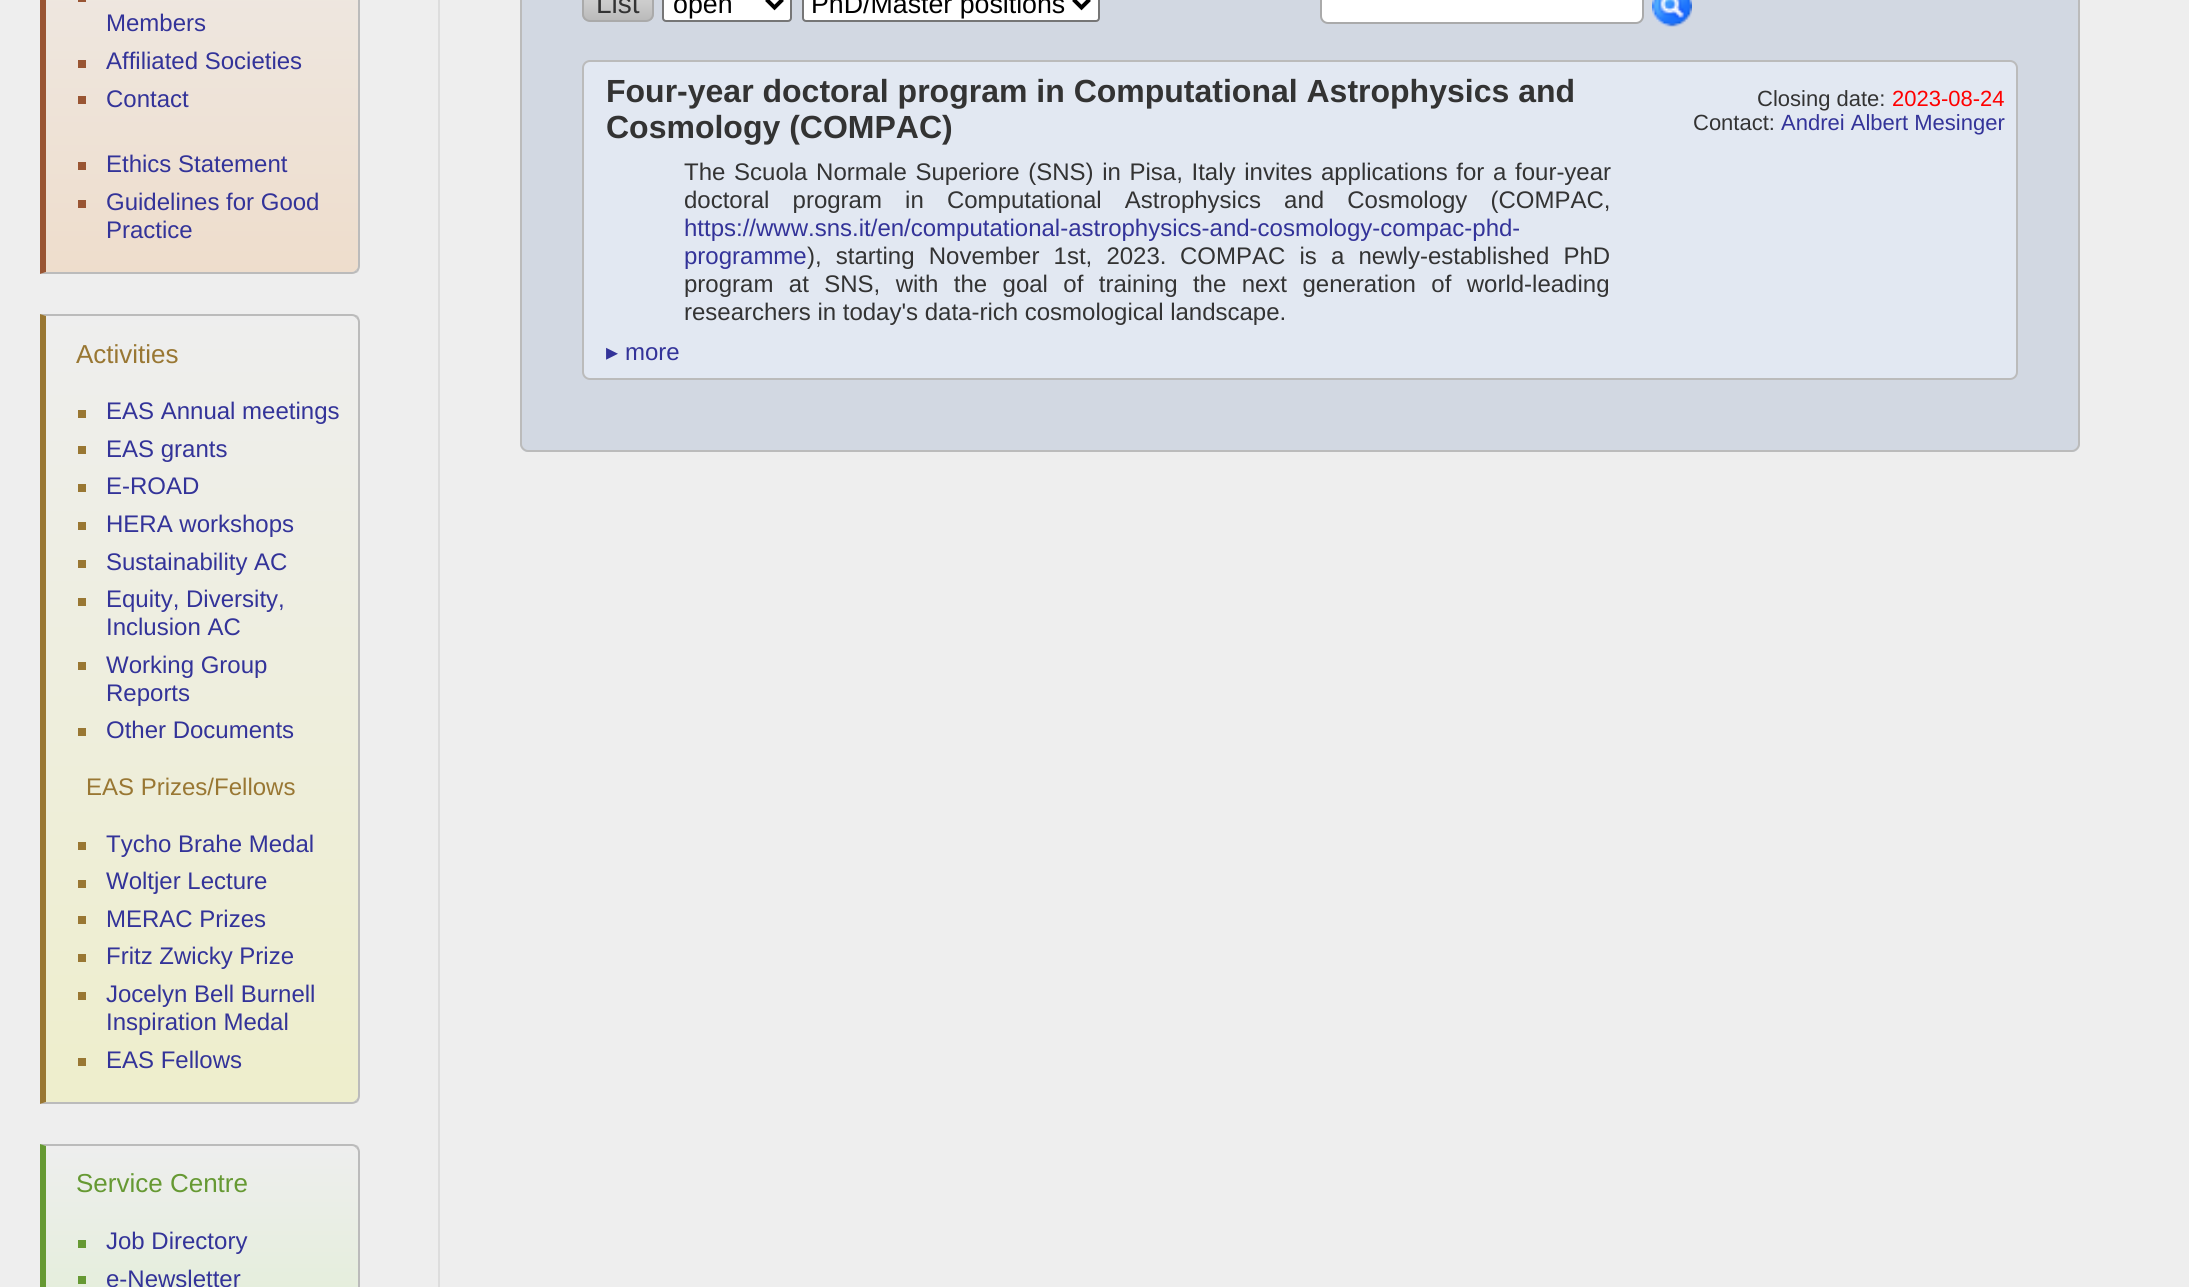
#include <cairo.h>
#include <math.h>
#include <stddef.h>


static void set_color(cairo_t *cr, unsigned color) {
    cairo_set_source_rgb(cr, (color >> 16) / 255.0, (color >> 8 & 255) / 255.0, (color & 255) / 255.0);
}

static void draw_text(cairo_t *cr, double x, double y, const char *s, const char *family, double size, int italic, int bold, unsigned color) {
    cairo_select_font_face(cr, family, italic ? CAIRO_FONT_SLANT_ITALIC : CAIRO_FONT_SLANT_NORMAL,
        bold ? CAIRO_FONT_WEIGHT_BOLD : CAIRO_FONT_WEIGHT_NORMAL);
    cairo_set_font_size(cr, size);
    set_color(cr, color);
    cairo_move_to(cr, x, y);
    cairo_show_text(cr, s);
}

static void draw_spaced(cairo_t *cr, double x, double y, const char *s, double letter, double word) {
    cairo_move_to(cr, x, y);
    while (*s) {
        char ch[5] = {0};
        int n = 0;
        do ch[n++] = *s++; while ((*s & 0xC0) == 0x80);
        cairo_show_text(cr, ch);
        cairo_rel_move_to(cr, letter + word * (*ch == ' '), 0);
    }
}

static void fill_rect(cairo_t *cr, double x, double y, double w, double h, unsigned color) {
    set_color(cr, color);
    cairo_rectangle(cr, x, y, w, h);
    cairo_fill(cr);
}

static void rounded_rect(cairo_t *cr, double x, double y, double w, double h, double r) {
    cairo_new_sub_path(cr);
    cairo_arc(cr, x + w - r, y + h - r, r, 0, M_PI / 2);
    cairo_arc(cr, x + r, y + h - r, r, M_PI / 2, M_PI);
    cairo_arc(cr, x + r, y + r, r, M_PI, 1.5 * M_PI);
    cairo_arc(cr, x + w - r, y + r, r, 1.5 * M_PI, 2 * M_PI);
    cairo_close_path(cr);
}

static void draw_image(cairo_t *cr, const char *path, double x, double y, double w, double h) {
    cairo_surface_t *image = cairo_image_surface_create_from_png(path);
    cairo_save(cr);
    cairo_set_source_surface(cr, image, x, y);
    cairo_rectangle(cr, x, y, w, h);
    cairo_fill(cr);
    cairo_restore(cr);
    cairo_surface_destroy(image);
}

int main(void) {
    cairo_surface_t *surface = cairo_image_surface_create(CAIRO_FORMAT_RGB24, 2189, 1287);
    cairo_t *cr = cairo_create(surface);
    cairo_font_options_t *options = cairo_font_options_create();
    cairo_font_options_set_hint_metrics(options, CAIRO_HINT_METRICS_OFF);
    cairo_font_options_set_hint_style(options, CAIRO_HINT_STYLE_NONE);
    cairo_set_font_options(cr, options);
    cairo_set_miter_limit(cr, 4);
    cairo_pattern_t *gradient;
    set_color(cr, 0xEEEEEE);
    cairo_paint(cr);
    fill_rect(cr, 438, 0, 2, 1287, 0xDDDDDD);
    gradient = cairo_pattern_create_linear(202, -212, 202, 272);
    cairo_pattern_add_color_stop_rgba(gradient, 0, 0.933, 0.933, 0.933, 1);
    cairo_pattern_add_color_stop_rgba(gradient, 1, 0.933, 0.867, 0.8, 1);
    cairo_set_source(cr, gradient);
    cairo_pattern_destroy(gradient);
    cairo_new_path(cr);
    cairo_move_to(cr, 46, -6);
    cairo_line_to(cr, 352, -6);
    cairo_curve_to(cr, 355.5, -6, 358, -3.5, 358, 0);
    cairo_line_to(cr, 358, 266);
    cairo_curve_to(cr, 358, 269.5, 355.5, 272, 352, 272);
    cairo_line_to(cr, 46, 272);
    cairo_close_path(cr);
    cairo_fill(cr);
    set_color(cr, 0xBBBBBB);
    cairo_new_path(cr);
    cairo_move_to(cr, 360, 266);
    cairo_line_to(cr, 360, -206);
    cairo_curve_to(cr, 360, -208, 359, -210, 358, -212);
    cairo_line_to(cr, 356, -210);
    cairo_curve_to(cr, 357, -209, 358, -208, 358, -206);
    cairo_line_to(cr, 358, 266);
    cairo_curve_to(cr, 358, 268, 357, 269, 356, 270);
    cairo_line_to(cr, 358, 272);
    cairo_curve_to(cr, 359, 270, 360, 268, 360, 266);
    cairo_close_path(cr);
    cairo_fill(cr);
    cairo_new_path(cr);
    cairo_move_to(cr, 352, 274);
    cairo_curve_to(cr, 354, 274, 356, 273, 358, 272);
    cairo_line_to(cr, 356, 270);
    cairo_curve_to(cr, 355, 271, 354, 272, 352, 272);
    cairo_line_to(cr, 46, 272);
    cairo_line_to(cr, 40, 274);
    cairo_close_path(cr);
    cairo_fill(cr);
    set_color(cr, 0x995533);
    cairo_new_path(cr);
    cairo_move_to(cr, 46, -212);
    cairo_line_to(cr, 40, -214);
    cairo_line_to(cr, 40, 274);
    cairo_line_to(cr, 46, 272);
    cairo_close_path(cr);
    cairo_fill(cr);
    fill_rect(cr, 78, 0, 8, 2, 0x995533);
    draw_text(cr, 106, 31, "Members", "Liberation Sans", 24, 0, 0, 0x333399);
    fill_rect(cr, 78, 60, 8, 8, 0x995533);
    draw_text(cr, 106, 69, "Affiliated Societies", "Liberation Sans", 24, 0, 0, 0x333399);
    fill_rect(cr, 78, 96, 8, 8, 0x995533);
    draw_text(cr, 106, 107, "Contact", "Liberation Sans", 24, 0, 0, 0x333399);
    fill_rect(cr, 78, 162, 8, 8, 0x995533);
    draw_text(cr, 106, 172, "Ethics Statement", "Liberation Sans", 24, 0, 0, 0x333399);
    fill_rect(cr, 78, 200, 8, 8, 0x995533);
    draw_text(cr, 106, 210, "Guidelines for Good", "Liberation Sans", 24, 0, 0, 0x333399);
    draw_text(cr, 106, 238, "Practice", "Liberation Sans", 24, 0, 0, 0x333399);
    gradient = cairo_pattern_create_linear(202, 316, 202, 1102);
    cairo_pattern_add_color_stop_rgba(gradient, 0, 0.933, 0.933, 0.933, 1);
    cairo_pattern_add_color_stop_rgba(gradient, 1, 0.933, 0.933, 0.8, 1);
    cairo_set_source(cr, gradient);
    cairo_pattern_destroy(gradient);
    cairo_new_path(cr);
    cairo_move_to(cr, 46, 316);
    cairo_line_to(cr, 352, 316);
    cairo_curve_to(cr, 355.5, 316, 358, 318.5, 358, 322);
    cairo_line_to(cr, 358, 1096);
    cairo_curve_to(cr, 358, 1099.5, 355.5, 1102, 352, 1102);
    cairo_line_to(cr, 46, 1102);
    cairo_close_path(cr);
    cairo_fill(cr);
    set_color(cr, 0xBBBBBB);
    cairo_new_path(cr);
    cairo_move_to(cr, 40, 314);
    cairo_line_to(cr, 46, 316);
    cairo_line_to(cr, 352, 316);
    cairo_curve_to(cr, 354, 316, 355, 317, 356, 318);
    cairo_line_to(cr, 358, 316);
    cairo_curve_to(cr, 356, 315, 354, 314, 352, 314);
    cairo_close_path(cr);
    cairo_fill(cr);
    cairo_new_path(cr);
    cairo_move_to(cr, 360, 1096);
    cairo_line_to(cr, 360, 322);
    cairo_curve_to(cr, 360, 320, 359, 318, 358, 316);
    cairo_line_to(cr, 356, 318);
    cairo_curve_to(cr, 357, 319, 358, 320, 358, 322);
    cairo_line_to(cr, 358, 1096);
    cairo_curve_to(cr, 358, 1098, 357, 1099, 356, 1100);
    cairo_line_to(cr, 358, 1102);
    cairo_curve_to(cr, 359, 1100, 360, 1098, 360, 1096);
    cairo_close_path(cr);
    cairo_fill(cr);
    cairo_new_path(cr);
    cairo_move_to(cr, 352, 1104);
    cairo_curve_to(cr, 354, 1104, 356, 1103, 358, 1102);
    cairo_line_to(cr, 356, 1100);
    cairo_curve_to(cr, 355, 1101, 354, 1102, 352, 1102);
    cairo_line_to(cr, 46, 1102);
    cairo_line_to(cr, 40, 1104);
    cairo_close_path(cr);
    cairo_fill(cr);
    set_color(cr, 0x997733);
    cairo_new_path(cr);
    cairo_move_to(cr, 46, 316);
    cairo_line_to(cr, 40, 314);
    cairo_line_to(cr, 40, 1104);
    cairo_line_to(cr, 46, 1102);
    cairo_close_path(cr);
    cairo_fill(cr);
    draw_text(cr, 76, 363, "Activities", "Liberation Sans", 26, 0, 0, 0x997733);
    fill_rect(cr, 78, 410, 8, 8, 0x997733);
    draw_text(cr, 106, 419, "EAS Annual meetings", "Liberation Sans", 24, 0, 0, 0x333399);
    fill_rect(cr, 78, 446, 8, 8, 0x997733);
    draw_text(cr, 106, 457, "EAS grants", "Liberation Sans", 24, 0, 0, 0x333399);
    fill_rect(cr, 78, 484, 8, 8, 0x997733);
    draw_text(cr, 106, 494, "E-ROAD", "Liberation Sans", 24, 0, 0, 0x333399);
    fill_rect(cr, 78, 522, 8, 8, 0x997733);
    draw_text(cr, 106, 532, "HERA workshops", "Liberation Sans", 24, 0, 0, 0x333399);
    fill_rect(cr, 78, 560, 8, 8, 0x997733);
    draw_text(cr, 106, 570, "Sustainability AC", "Liberation Sans", 24, 0, 0, 0x333399);
    fill_rect(cr, 78, 598, 8, 8, 0x997733);
    draw_text(cr, 106, 607, "Equity, Diversity,", "Liberation Sans", 24, 0, 0, 0x333399);
    draw_text(cr, 106, 635, "Inclusion AC", "Liberation Sans", 24, 0, 0, 0x333399);
    fill_rect(cr, 78, 662, 8, 8, 0x997733);
    draw_text(cr, 106, 673, "Working Group", "Liberation Sans", 24, 0, 0, 0x333399);
    draw_text(cr, 106, 701, "Reports", "Liberation Sans", 24, 0, 0, 0x333399);
    fill_rect(cr, 78, 728, 8, 8, 0x997733);
    draw_text(cr, 106, 738, "Other Documents", "Liberation Sans", 24, 0, 0, 0x333399);
    draw_text(cr, 86, 795, "EAS Prizes/Fellows", "Liberation Sans", 24, 0, 0, 0x997733);
    fill_rect(cr, 78, 842, 8, 8, 0x997733);
    draw_text(cr, 106, 852, "Tycho Brahe Medal", "Liberation Sans", 24, 0, 0, 0x333399);
    fill_rect(cr, 78, 880, 8, 8, 0x997733);
    draw_text(cr, 106, 889, "Woltjer Lecture", "Liberation Sans", 24, 0, 0, 0x333399);
    fill_rect(cr, 78, 916, 8, 8, 0x997733);
    draw_text(cr, 106, 927, "MERAC Prizes", "Liberation Sans", 24, 0, 0, 0x333399);
    fill_rect(cr, 78, 954, 8, 8, 0x997733);
    draw_text(cr, 106, 964, "Fritz Zwicky Prize", "Liberation Sans", 24, 0, 0, 0x333399);
    fill_rect(cr, 78, 992, 8, 8, 0x997733);
    draw_text(cr, 106, 1002, "Jocelyn Bell Burnell", "Liberation Sans", 24, 0, 0, 0x333399);
    draw_text(cr, 106, 1030, "Inspiration Medal", "Liberation Sans", 24, 0, 0, 0x333399);
    fill_rect(cr, 78, 1058, 8, 8, 0x997733);
    draw_text(cr, 106, 1068, "EAS Fellows", "Liberation Sans", 24, 0, 0, 0x333399);
    gradient = cairo_pattern_create_linear(202, 1146, 202, 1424);
    cairo_pattern_add_color_stop_rgba(gradient, 0, 0.933, 0.933, 0.933, 1);
    cairo_pattern_add_color_stop_rgba(gradient, 1, 0.867, 0.933, 0.8, 1);
    cairo_set_source(cr, gradient);
    cairo_pattern_destroy(gradient);
    cairo_new_path(cr);
    cairo_move_to(cr, 46, 1146);
    cairo_line_to(cr, 352, 1146);
    cairo_curve_to(cr, 355.5, 1146, 358, 1148.5, 358, 1152);
    cairo_line_to(cr, 358, 1287);
    cairo_curve_to(cr, 358, 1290.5, 355.5, 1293, 352, 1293);
    cairo_line_to(cr, 46, 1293);
    cairo_close_path(cr);
    cairo_fill(cr);
    set_color(cr, 0xBBBBBB);
    cairo_new_path(cr);
    cairo_move_to(cr, 40, 1144);
    cairo_line_to(cr, 46, 1146);
    cairo_line_to(cr, 352, 1146);
    cairo_curve_to(cr, 354, 1146, 355, 1147, 356, 1148);
    cairo_line_to(cr, 358, 1146);
    cairo_curve_to(cr, 356, 1145, 354, 1144, 352, 1144);
    cairo_close_path(cr);
    cairo_fill(cr);
    cairo_new_path(cr);
    cairo_move_to(cr, 360, 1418);
    cairo_line_to(cr, 360, 1152);
    cairo_curve_to(cr, 360, 1150, 359, 1148, 358, 1146);
    cairo_line_to(cr, 356, 1148);
    cairo_curve_to(cr, 357, 1149, 358, 1150, 358, 1152);
    cairo_line_to(cr, 358, 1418);
    cairo_curve_to(cr, 358, 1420, 357, 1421, 356, 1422);
    cairo_line_to(cr, 358, 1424);
    cairo_curve_to(cr, 359, 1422, 360, 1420, 360, 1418);
    cairo_close_path(cr);
    cairo_fill(cr);
    set_color(cr, 0x669933);
    cairo_new_path(cr);
    cairo_move_to(cr, 46, 1146);
    cairo_line_to(cr, 40, 1144);
    cairo_line_to(cr, 40, 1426);
    cairo_line_to(cr, 46, 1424);
    cairo_close_path(cr);
    cairo_fill(cr);
    draw_text(cr, 76, 1192, "Service Centre", "Liberation Sans", 26, 0, 0, 0x669933);
    fill_rect(cr, 78, 1240, 8, 8, 0x669933);
    draw_text(cr, 106, 1249, "Job Directory", "Liberation Sans", 24, 0, 0, 0x333399);
    fill_rect(cr, 78, 1276, 8, 8, 0x669933);
    draw_text(cr, 106, 1287, "e-Newsletter", "Liberation Sans", 24, 0, 0, 0x333399);
    set_color(cr, 0xD2D8E2);
    cairo_new_path(cr);
    cairo_move_to(cr, 520, -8);
    cairo_line_to(cr, 2080, -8);
    cairo_line_to(cr, 2080, 444);
    cairo_curve_to(cr, 2080, 448.5, 2076.5, 452, 2072, 452);
    cairo_line_to(cr, 528, 452);
    cairo_curve_to(cr, 523.5, 452, 520, 448.5, 520, 444);
    cairo_close_path(cr);
    cairo_fill(cr);
    set_color(cr, 0xBBBBBB);
    cairo_set_fill_rule(cr, CAIRO_FILL_RULE_EVEN_ODD);
    cairo_new_path(cr);
    cairo_move_to(cr, 520, -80);
    cairo_line_to(cr, 2080, -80);
    cairo_line_to(cr, 2080, 444);
    cairo_curve_to(cr, 2080, 448, 2076, 452, 2072, 452);
    cairo_line_to(cr, 528, 452);
    cairo_curve_to(cr, 524, 452, 520, 448, 520, 444);
    cairo_close_path(cr);
    cairo_move_to(cr, 522, -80);
    cairo_line_to(cr, 2078, -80);
    cairo_line_to(cr, 2078, 444);
    cairo_curve_to(cr, 2078, 447, 2075, 450, 2072, 450);
    cairo_line_to(cr, 528, 450);
    cairo_curve_to(cr, 525, 450, 522, 447, 522, 444);
    cairo_close_path(cr);
    cairo_fill(cr);
    cairo_save(cr);
    cairo_set_fill_rule(cr, CAIRO_FILL_RULE_WINDING);
    rounded_rect(cr, 582, -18, 72, 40, 8);
    cairo_clip(cr);
    gradient = cairo_pattern_create_linear(618, -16, 618, 20);
    cairo_pattern_add_color_stop_rgba(gradient, 0, 0.867, 0.867, 0.867, 1);
    cairo_pattern_add_color_stop_rgba(gradient, 1, 0.733, 0.733, 0.733, 1);
    cairo_set_source(cr, gradient);
    cairo_pattern_destroy(gradient);
    cairo_rectangle(cr, 582, 0, 72, 20);
    cairo_fill(cr);
    cairo_restore(cr);
    rounded_rect(cr, 583, -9, 70, 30, 7);
    set_color(cr, 0xAAAAAA);
    cairo_stroke(cr);
    draw_text(cr, 596, 13, "List", "Liberation Sans", 28, 0, 0, 0x333333);
    set_color(cr, 0xFFFFFF);
    rounded_rect(cr, 663, -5, 128, 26, 3);
    cairo_fill_preserve(cr);
    set_color(cr, 0x767676);
    cairo_stroke(cr);
    cairo_new_path(cr);
    cairo_move_to(cr, 766.5, -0.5);
    cairo_line_to(cr, 774.5, 7.5);
    cairo_line_to(cr, 782.5, -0.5);
    set_color(cr, 0x000000);
    cairo_set_line_width(cr, 4);
    cairo_stroke(cr);
    draw_text(cr, 673, 13, "open", "Liberation Sans", 26.75, 0, 0, 0x000000);
    set_color(cr, 0xFFFFFF);
    rounded_rect(cr, 803, -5, 296, 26, 3);
    cairo_fill_preserve(cr);
    set_color(cr, 0x767676);
    cairo_set_line_width(cr, 2);
    cairo_stroke(cr);
    cairo_new_path(cr);
    cairo_move_to(cr, 1073.5, -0.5);
    cairo_line_to(cr, 1081.5, 7.5);
    cairo_line_to(cr, 1089.5, -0.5);
    set_color(cr, 0x000000);
    cairo_set_line_width(cr, 4);
    cairo_stroke(cr);
    draw_text(cr, 811, 13, "PhD/Master positions", "Liberation Sans", 26.75, 0, 0, 0x000000);
    set_color(cr, 0xFFFFFF);
    rounded_rect(cr, 1321, -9, 322, 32, 7);
    cairo_fill_preserve(cr);
    set_color(cr, 0xAAAAAA);
    cairo_set_line_width(cr, 2);
    cairo_stroke(cr);
    draw_image(cr, "assets/img1.png", 1652, 0, 40, 27);
    set_color(cr, 0xE2E8F2);
    rounded_rect(cr, 583, 61, 1434, 318, 7);
    cairo_fill_preserve(cr);
    set_color(cr, 0xBBBBBB);
    cairo_stroke(cr);
    draw_text(cr, 606, 102, "Four-year doctoral program in Computational Astrophysics and", "Liberation Sans", 32, 0, 1, 0x333333);
    draw_text(cr, 606, 138, "Cosmology (COMPAC)", "Liberation Sans", 32, 0, 1, 0x333333);
    draw_text(cr, 1757, 106, "Closing date:", "Liberation Sans", 22, 0, 0, 0x333333);
    draw_text(cr, 1892, 106, "2023-08-24", "Liberation Sans", 22, 0, 0, 0xFF0000);
    draw_text(cr, 1693, 130, "Contact:", "Liberation Sans", 22, 0, 0, 0x333333);
    draw_text(cr, 1781, 130, "Andrei Albert Mesinger", "Liberation Sans", 22, 0, 0, 0x333399);
    cairo_set_font_size(cr, 24);
    set_color(cr, 0x333333);
    draw_spaced(cr, 684, 180, "The Scuola Normale Superiore (SNS) in Pisa, Italy invites applications for a four-year", 0, 2);
    draw_spaced(cr, 684, 208, "doctoral program in Computational Astrophysics and Cosmology (COMPAC,", 0, 16.5);
    draw_text(cr, 684, 236, "https://www.sns.it/en/computational-astrophysics-and-cosmology-compac-phd-", "Liberation Sans", 24, 0, 0, 0x333399);
    draw_text(cr, 684, 264, "programme", "Liberation Sans", 24, 0, 0, 0x333399);
    set_color(cr, 0x333333);
    draw_spaced(cr, 807, 264, "), starting November 1st, 2023.", 0, 7.5);
    draw_spaced(cr, 1180, 264, "COMPAC is a newly-established PhD", 0, 7.5);
    draw_spaced(cr, 684, 292, "program at SNS, with the goal of training the next generation of world-leading", 0, 8.75);
    draw_text(cr, 684, 320, "researchers in today's data-rich cosmological landscape.", "Liberation Sans", 24, 0, 0, 0x333333);
    draw_text(cr, 606, 360, "▸", "DejaVu Sans", 24, 0, 0, 0x333399);
    draw_text(cr, 625, 360, "more", "Liberation Sans", 24, 0, 0, 0x333399);
    cairo_surface_write_to_png(surface, "output.png");
    cairo_font_options_destroy(options);
    cairo_destroy(cr);
    cairo_surface_destroy(surface);
    return 0;
}
